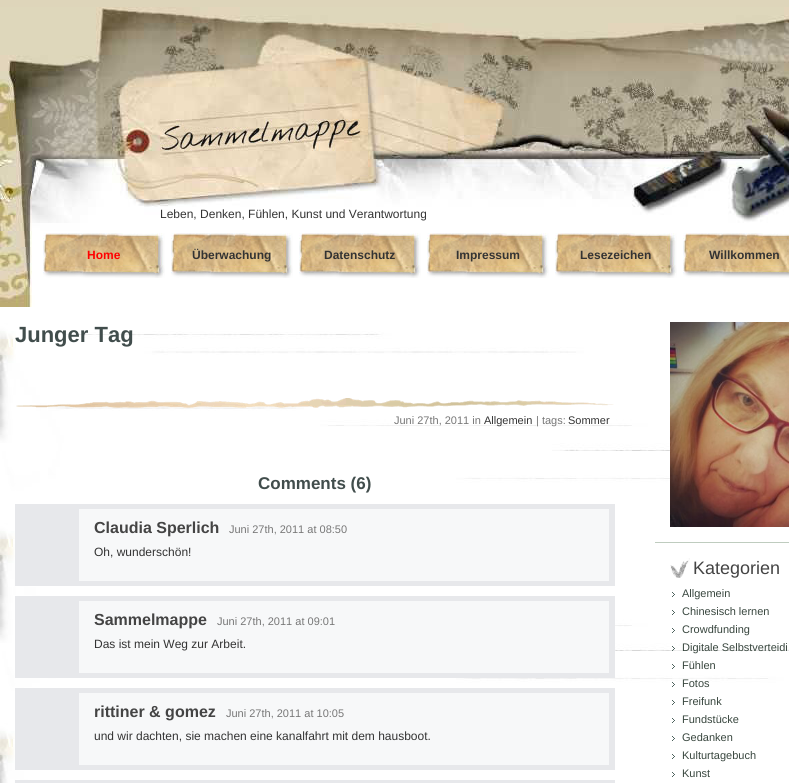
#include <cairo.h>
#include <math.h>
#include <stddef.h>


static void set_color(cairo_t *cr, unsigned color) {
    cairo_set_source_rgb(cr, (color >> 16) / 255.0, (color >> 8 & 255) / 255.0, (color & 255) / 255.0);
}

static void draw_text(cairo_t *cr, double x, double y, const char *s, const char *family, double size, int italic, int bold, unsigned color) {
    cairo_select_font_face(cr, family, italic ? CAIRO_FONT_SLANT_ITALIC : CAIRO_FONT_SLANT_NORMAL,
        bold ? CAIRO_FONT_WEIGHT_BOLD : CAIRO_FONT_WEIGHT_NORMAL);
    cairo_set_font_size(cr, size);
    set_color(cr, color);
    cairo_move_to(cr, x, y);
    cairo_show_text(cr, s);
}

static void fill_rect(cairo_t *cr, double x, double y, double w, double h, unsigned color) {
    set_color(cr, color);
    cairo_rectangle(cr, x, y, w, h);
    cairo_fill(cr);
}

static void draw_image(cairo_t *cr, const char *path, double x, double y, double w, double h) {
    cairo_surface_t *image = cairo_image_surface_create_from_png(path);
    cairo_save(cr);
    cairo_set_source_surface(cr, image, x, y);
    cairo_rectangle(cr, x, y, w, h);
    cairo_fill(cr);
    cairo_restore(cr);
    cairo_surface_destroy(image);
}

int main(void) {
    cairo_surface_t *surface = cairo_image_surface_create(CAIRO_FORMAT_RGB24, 789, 783);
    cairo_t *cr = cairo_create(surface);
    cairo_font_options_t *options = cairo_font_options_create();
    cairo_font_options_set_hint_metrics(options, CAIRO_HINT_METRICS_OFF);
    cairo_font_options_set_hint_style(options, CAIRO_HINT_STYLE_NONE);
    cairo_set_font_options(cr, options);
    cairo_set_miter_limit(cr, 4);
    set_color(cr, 0xDED5BA);
    cairo_paint(cr);
    draw_image(cr, "assets/img1.png", 0, 7, 789, 300);
    draw_text(cr, 160, 218, "Leben, Denken, Fühlen, Kunst und Verantwortung", "Liberation Sans", 12, 0, 0, 0x333333);
    draw_image(cr, "assets/img2.png", 43, 233, 122, 45);
    draw_text(cr, 87, 259, "Home", "Liberation Sans", 12, 0, 1, 0xFF0000);
    draw_image(cr, "assets/img2.png", 171, 233, 122, 45);
    draw_text(cr, 192, 259, "Überwachung", "Liberation Sans", 12, 0, 1, 0x333333);
    draw_image(cr, "assets/img2.png", 299, 233, 122, 45);
    draw_text(cr, 324, 259, "Datenschutz", "Liberation Sans", 12, 0, 1, 0x333333);
    draw_image(cr, "assets/img2.png", 427, 233, 122, 45);
    draw_text(cr, 456, 259, "Impressum", "Liberation Sans", 12, 0, 1, 0x333333);
    draw_image(cr, "assets/img2.png", 555, 233, 122, 45);
    draw_text(cr, 580, 259, "Lesezeichen", "Liberation Sans", 12, 0, 1, 0x333333);
    draw_image(cr, "assets/img3.png", 683, 233, 106, 45);
    draw_text(cr, 709, 259, "Willkommen", "Liberation Sans", 12, 0, 1, 0x333333);
    draw_image(cr, "assets/img4.png", 0, 307, 789, 476);
    draw_text(cr, 15, 342, "Junger Tag", "Liberation Sans", 22, 0, 1, 0x414D4C);
    draw_image(cr, "assets/img5.png", 16, 398, 598, 10);
    draw_text(cr, 394, 424, "Juni 27th, 2011 in", "Liberation Sans", 11, 0, 0, 0x777777);
    draw_text(cr, 484, 424, "Allgemein", "Liberation Sans", 11, 0, 0, 0x333333);
    draw_text(cr, 536, 424, "| tags:", "Liberation Sans", 11, 0, 0, 0x777777);
    draw_text(cr, 568, 424, "Sommer", "Liberation Sans", 11, 0, 0, 0x333333);
    draw_text(cr, 258, 489, "Comments (6)", "Liberation Sans", 17, 0, 1, 0x414D4C);
    fill_rect(cr, 15, 504, 600, 82, 0xE7E8EB);
    fill_rect(cr, 79, 509, 530, 72, 0xF7F8F9);
    draw_text(cr, 94, 533, "Claudia Sperlich", "Liberation Sans", 16, 0, 1, 0x444444);
    draw_text(cr, 229, 533, "Juni 27th, 2011 at 08:50", "Liberation Sans", 11, 0, 0, 0x777777);
    draw_text(cr, 94, 556, "Oh, wunderschön!", "Liberation Sans", 12, 0, 0, 0x333333);
    fill_rect(cr, 15, 596, 600, 82, 0xE7E8EB);
    fill_rect(cr, 79, 601, 530, 72, 0xF7F8F9);
    draw_text(cr, 94, 625, "Sammelmappe", "Liberation Sans", 16, 0, 1, 0x444444);
    draw_text(cr, 217, 625, "Juni 27th, 2011 at 09:01", "Liberation Sans", 11, 0, 0, 0x777777);
    draw_text(cr, 94, 648, "Das ist mein Weg zur Arbeit.", "Liberation Sans", 12, 0, 0, 0x333333);
    fill_rect(cr, 15, 688, 600, 82, 0xE7E8EB);
    fill_rect(cr, 79, 693, 530, 72, 0xF7F8F9);
    draw_text(cr, 94, 717, "rittiner & gomez", "Liberation Sans", 16, 0, 1, 0x444444);
    draw_text(cr, 226, 717, "Juni 27th, 2011 at 10:05", "Liberation Sans", 11, 0, 0, 0x777777);
    draw_text(cr, 94, 740, "und wir dachten, sie machen eine kanalfahrt mit dem hausboot.", "Liberation Sans", 12, 0, 0, 0x333333);
    fill_rect(cr, 15, 780, 600, 3, 0xE7E8EB);
    fill_rect(cr, 655, 542, 134, 1, 0xBFCCBF);
    draw_image(cr, "assets/img6.png", 670, 322, 119, 205);
    draw_image(cr, "assets/img7.png", 670, 558, 20, 20);
    draw_text(cr, 693, 574, "Kategorien", "Liberation Sans", 18, 0, 0, 0x444444);
    draw_image(cr, "assets/img8.png", 672, 592, 3, 5);
    draw_text(cr, 682, 597, "Allgemein", "Liberation Sans", 11, 0, 0, 0x38463E);
    draw_image(cr, "assets/img8.png", 672, 610, 3, 5);
    draw_text(cr, 682, 615, "Chinesisch lernen", "Liberation Sans", 11, 0, 0, 0x38463E);
    draw_image(cr, "assets/img8.png", 672, 628, 3, 5);
    draw_text(cr, 682, 633, "Crowdfunding", "Liberation Sans", 11, 0, 0, 0x38463E);
    draw_image(cr, "assets/img9.png", 672, 646, 3, 5);
    draw_text(cr, 682, 651, "Digitale Selbstverteidi", "Liberation Sans", 11, 0, 0, 0x38463E);
    draw_image(cr, "assets/img8.png", 672, 664, 3, 5);
    draw_text(cr, 682, 669, "Fühlen", "Liberation Sans", 11, 0, 0, 0x38463E);
    draw_image(cr, "assets/img10.png", 672, 682, 3, 5);
    draw_text(cr, 682, 687, "Fotos", "Liberation Sans", 11, 0, 0, 0x38463E);
    draw_image(cr, "assets/img8.png", 672, 700, 3, 5);
    draw_text(cr, 682, 705, "Freifunk", "Liberation Sans", 11, 0, 0, 0x38463E);
    draw_image(cr, "assets/img8.png", 672, 718, 3, 5);
    draw_text(cr, 682, 723, "Fundstücke", "Liberation Sans", 11, 0, 0, 0x38463E);
    draw_image(cr, "assets/img8.png", 672, 736, 3, 5);
    draw_text(cr, 682, 741, "Gedanken", "Liberation Sans", 11, 0, 0, 0x38463E);
    draw_image(cr, "assets/img8.png", 672, 754, 3, 5);
    draw_text(cr, 682, 759, "Kulturtagebuch", "Liberation Sans", 11, 0, 0, 0x38463E);
    draw_image(cr, "assets/img8.png", 672, 772, 3, 5);
    draw_text(cr, 682, 777, "Kunst", "Liberation Sans", 11, 0, 0, 0x38463E);
    cairo_surface_write_to_png(surface, "output.png");
    cairo_font_options_destroy(options);
    cairo_destroy(cr);
    cairo_surface_destroy(surface);
    return 0;
}
